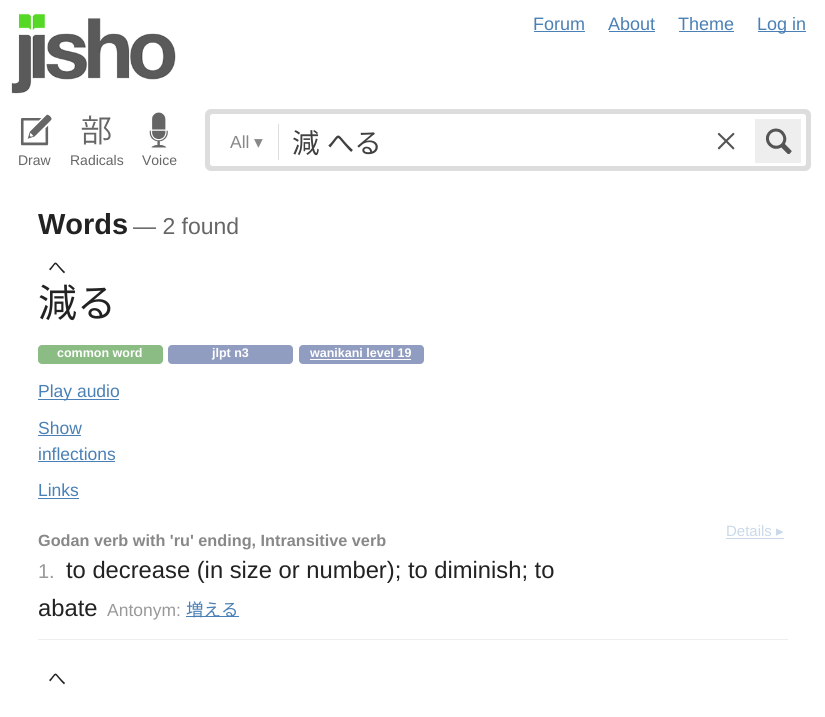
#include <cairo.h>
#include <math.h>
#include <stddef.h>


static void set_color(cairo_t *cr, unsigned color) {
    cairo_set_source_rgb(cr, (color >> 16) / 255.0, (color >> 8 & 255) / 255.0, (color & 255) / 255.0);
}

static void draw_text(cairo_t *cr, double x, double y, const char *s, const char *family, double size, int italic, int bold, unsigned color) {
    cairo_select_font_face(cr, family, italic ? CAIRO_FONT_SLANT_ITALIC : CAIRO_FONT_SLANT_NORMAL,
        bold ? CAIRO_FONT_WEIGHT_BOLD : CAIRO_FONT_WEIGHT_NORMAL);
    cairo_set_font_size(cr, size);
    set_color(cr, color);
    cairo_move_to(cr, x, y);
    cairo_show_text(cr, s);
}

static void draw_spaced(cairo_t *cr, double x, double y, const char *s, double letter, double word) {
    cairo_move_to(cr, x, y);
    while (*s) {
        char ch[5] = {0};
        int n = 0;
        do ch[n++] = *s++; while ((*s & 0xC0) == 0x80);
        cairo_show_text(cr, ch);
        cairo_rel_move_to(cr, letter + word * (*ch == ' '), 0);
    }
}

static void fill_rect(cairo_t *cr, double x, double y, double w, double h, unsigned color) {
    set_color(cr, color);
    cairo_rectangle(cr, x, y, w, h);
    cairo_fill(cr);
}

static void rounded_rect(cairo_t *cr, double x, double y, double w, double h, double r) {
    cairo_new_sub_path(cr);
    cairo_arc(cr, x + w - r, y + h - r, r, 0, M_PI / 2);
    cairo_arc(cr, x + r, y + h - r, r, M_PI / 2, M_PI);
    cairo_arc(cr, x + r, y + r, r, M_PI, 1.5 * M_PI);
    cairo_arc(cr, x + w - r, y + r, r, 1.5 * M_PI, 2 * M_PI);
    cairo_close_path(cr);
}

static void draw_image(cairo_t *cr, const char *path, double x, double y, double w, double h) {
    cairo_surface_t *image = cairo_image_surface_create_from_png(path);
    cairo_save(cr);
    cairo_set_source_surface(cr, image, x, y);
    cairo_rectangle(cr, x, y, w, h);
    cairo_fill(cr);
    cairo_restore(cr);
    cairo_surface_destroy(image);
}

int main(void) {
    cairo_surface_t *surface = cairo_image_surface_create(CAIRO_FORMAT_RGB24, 825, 717);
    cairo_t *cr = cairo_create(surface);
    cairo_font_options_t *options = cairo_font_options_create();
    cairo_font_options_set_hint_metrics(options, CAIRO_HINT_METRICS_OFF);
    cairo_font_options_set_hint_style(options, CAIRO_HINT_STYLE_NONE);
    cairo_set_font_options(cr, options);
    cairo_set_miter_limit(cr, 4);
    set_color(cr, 0xFFFFFF);
    cairo_paint(cr);
    draw_image(cr, "assets/img1.png", 11, 13, 165, 81);
    draw_text(cr, 533, 30, "Forum", "Liberation Sans", 18, 0, 0, 0x4A80B5);
    fill_rect(cr, 534, 31, 51, 1, 0x4A80B5);
    draw_text(cr, 608, 30, "About", "Liberation Sans", 18, 0, 0, 0x4A80B5);
    fill_rect(cr, 609, 31, 46, 1, 0x4A80B5);
    draw_text(cr, 678, 30, "Theme", "Liberation Sans", 18, 0, 0, 0x4A80B5);
    fill_rect(cr, 679, 31, 55, 1, 0x4A80B5);
    fill_rect(cr, 758, 31, 48, 1, 0x4A80B5);
    draw_text(cr, 757, 30, "Log in", "Liberation Sans", 18, 0, 0, 0x4A80B5);
    set_color(cr, 0xDDDDDD);
    rounded_rect(cr, 205, 109, 606, 62, 6);
    cairo_fill(cr);
    set_color(cr, 0xFFFFFF);
    rounded_rect(cr, 210, 114, 596, 52, 2.5);
    cairo_fill(cr);
    fill_rect(cr, 278, 124, 1, 36, 0xDDDDDD);
    draw_text(cr, 230, 148, "All", "Liberation Sans", 17.5, 0, 0, 0x888888);
    draw_text(cr, 254, 148, "▾", "DejaVu Sans", 17.5, 0, 0, 0x888888);
    cairo_select_font_face(cr, "Noto Sans CJK JP", CAIRO_FONT_SLANT_NORMAL, CAIRO_FONT_WEIGHT_NORMAL);
    cairo_set_font_size(cr, 27.5);
    set_color(cr, 0x404040);
    draw_spaced(cr, 292, 153, "減 へる", 0, 1);
    draw_image(cr, "assets/img2.png", 717, 132, 18, 18);
    set_color(cr, 0xEEEEEE);
    cairo_new_path(cr);
    cairo_move_to(cr, 755, 119);
    cairo_line_to(cr, 800, 119);
    cairo_curve_to(cr, 800.5, 119, 801, 119.5, 801, 120);
    cairo_line_to(cr, 801, 162);
    cairo_curve_to(cr, 801, 162.5, 800.5, 163, 800, 163);
    cairo_line_to(cr, 755, 163);
    cairo_close_path(cr);
    cairo_fill(cr);
    draw_image(cr, "assets/img3.png", 765, 128, 27, 26);
    draw_image(cr, "assets/img4.png", 20, 114, 32, 32);
    draw_text(cr, 18, 165, "Draw", "Liberation Sans", 14, 0, 0, 0x666666);
    draw_image(cr, "assets/img5.png", 81, 115, 30, 30);
    draw_text(cr, 70, 165, "Radicals", "Liberation Sans", 14, 0, 0, 0x666666);
    draw_image(cr, "assets/img6.png", 149, 112, 19, 36);
    draw_text(cr, 142, 165, "Voice", "Liberation Sans", 14, 0, 0, 0x666666);
    draw_text(cr, 38, 234, "Words", "Liberation Sans", 29, 0, 1, 0x222222);
    draw_text(cr, 133, 234, "— 2 found", "Liberation Sans", 23, 0, 0, 0x666666);
    fill_rect(cr, 38, 639, 750, 1, 0xEEEEEE);
    draw_text(cr, 48, 274, "へ", "Noto Sans CJK JP", 18, 0, 0, 0x222222);
    draw_text(cr, 38, 317, "減る", "Noto Sans CJK JP", 39, 0, 0, 0x222222);
    set_color(cr, 0x8ABC83);
    rounded_rect(cr, 38, 345, 125, 19, 4);
    cairo_fill(cr);
    draw_text(cr, 57, 357, "common word", "Liberation Sans", 12.5, 0, 1, 0xFFFFFF);
    set_color(cr, 0x909DC0);
    rounded_rect(cr, 168, 345, 125, 19, 4);
    cairo_fill(cr);
    draw_text(cr, 212, 357, "jlpt n3", "Liberation Sans", 12.5, 0, 1, 0xFFFFFF);
    set_color(cr, 0x909DC0);
    rounded_rect(cr, 299, 345, 125, 19, 4);
    cairo_fill(cr);
    draw_text(cr, 310, 357, "wanikani level 19", "Liberation Sans", 12.5, 0, 1, 0xFFFFFF);
    fill_rect(cr, 310, 359, 101, 1, 0xFFFFFF);
    fill_rect(cr, 38, 399, 81, 1, 0x4A80B5);
    draw_text(cr, 38, 397, "Play audio", "Liberation Sans", 17.5, 0, 0, 0x4A80B5);
    draw_text(cr, 38, 434, "Show", "Liberation Sans", 17.5, 0, 0, 0x4A80B5);
    fill_rect(cr, 38, 435, 43, 1, 0x4A80B5);
    draw_text(cr, 38, 460, "inflections", "Liberation Sans", 17.5, 0, 0, 0x4A80B5);
    fill_rect(cr, 38, 461, 77, 1, 0x4A80B5);
    draw_text(cr, 38, 496, "Links", "Liberation Sans", 17.5, 0, 0, 0x4A80B5);
    fill_rect(cr, 38, 498, 41, 1, 0x4A80B5);
    draw_text(cr, 726, 536, "Details", "Liberation Sans", 15, 0, 0, 0xC9D9E9);
    draw_text(cr, 776, 536, "▸", "DejaVu Sans", 15, 0, 0, 0xC9D9E9);
    fill_rect(cr, 726, 538, 58, 1, 0xC9D9E9);
    draw_text(cr, 38, 546, "Godan verb with 'ru' ending, Intransitive verb", "Liberation Sans", 16.25, 0, 1, 0x888888);
    draw_text(cr, 38, 578, "1.", "Liberation Sans", 20, 0, 0, 0x999999);
    draw_text(cr, 66, 578, "to decrease (in size or number); to diminish; to", "Liberation Sans", 23.75, 0, 0, 0x222222);
    draw_text(cr, 38, 616, "abate", "Liberation Sans", 23.75, 0, 0, 0x222222);
    draw_text(cr, 107, 616, "Antonym:", "Liberation Sans", 17.5, 0, 0, 0x999999);
    fill_rect(cr, 186, 616, 53, 1, 0x4A80B5);
    draw_text(cr, 186, 616, "増える", "Noto Sans CJK JP", 17.5, 0, 0, 0x4A80B5);
    draw_text(cr, 48, 685, "へ", "Noto Sans CJK JP", 18, 0, 0, 0x222222);
    cairo_surface_write_to_png(surface, "output.png");
    cairo_font_options_destroy(options);
    cairo_destroy(cr);
    cairo_surface_destroy(surface);
    return 0;
}
